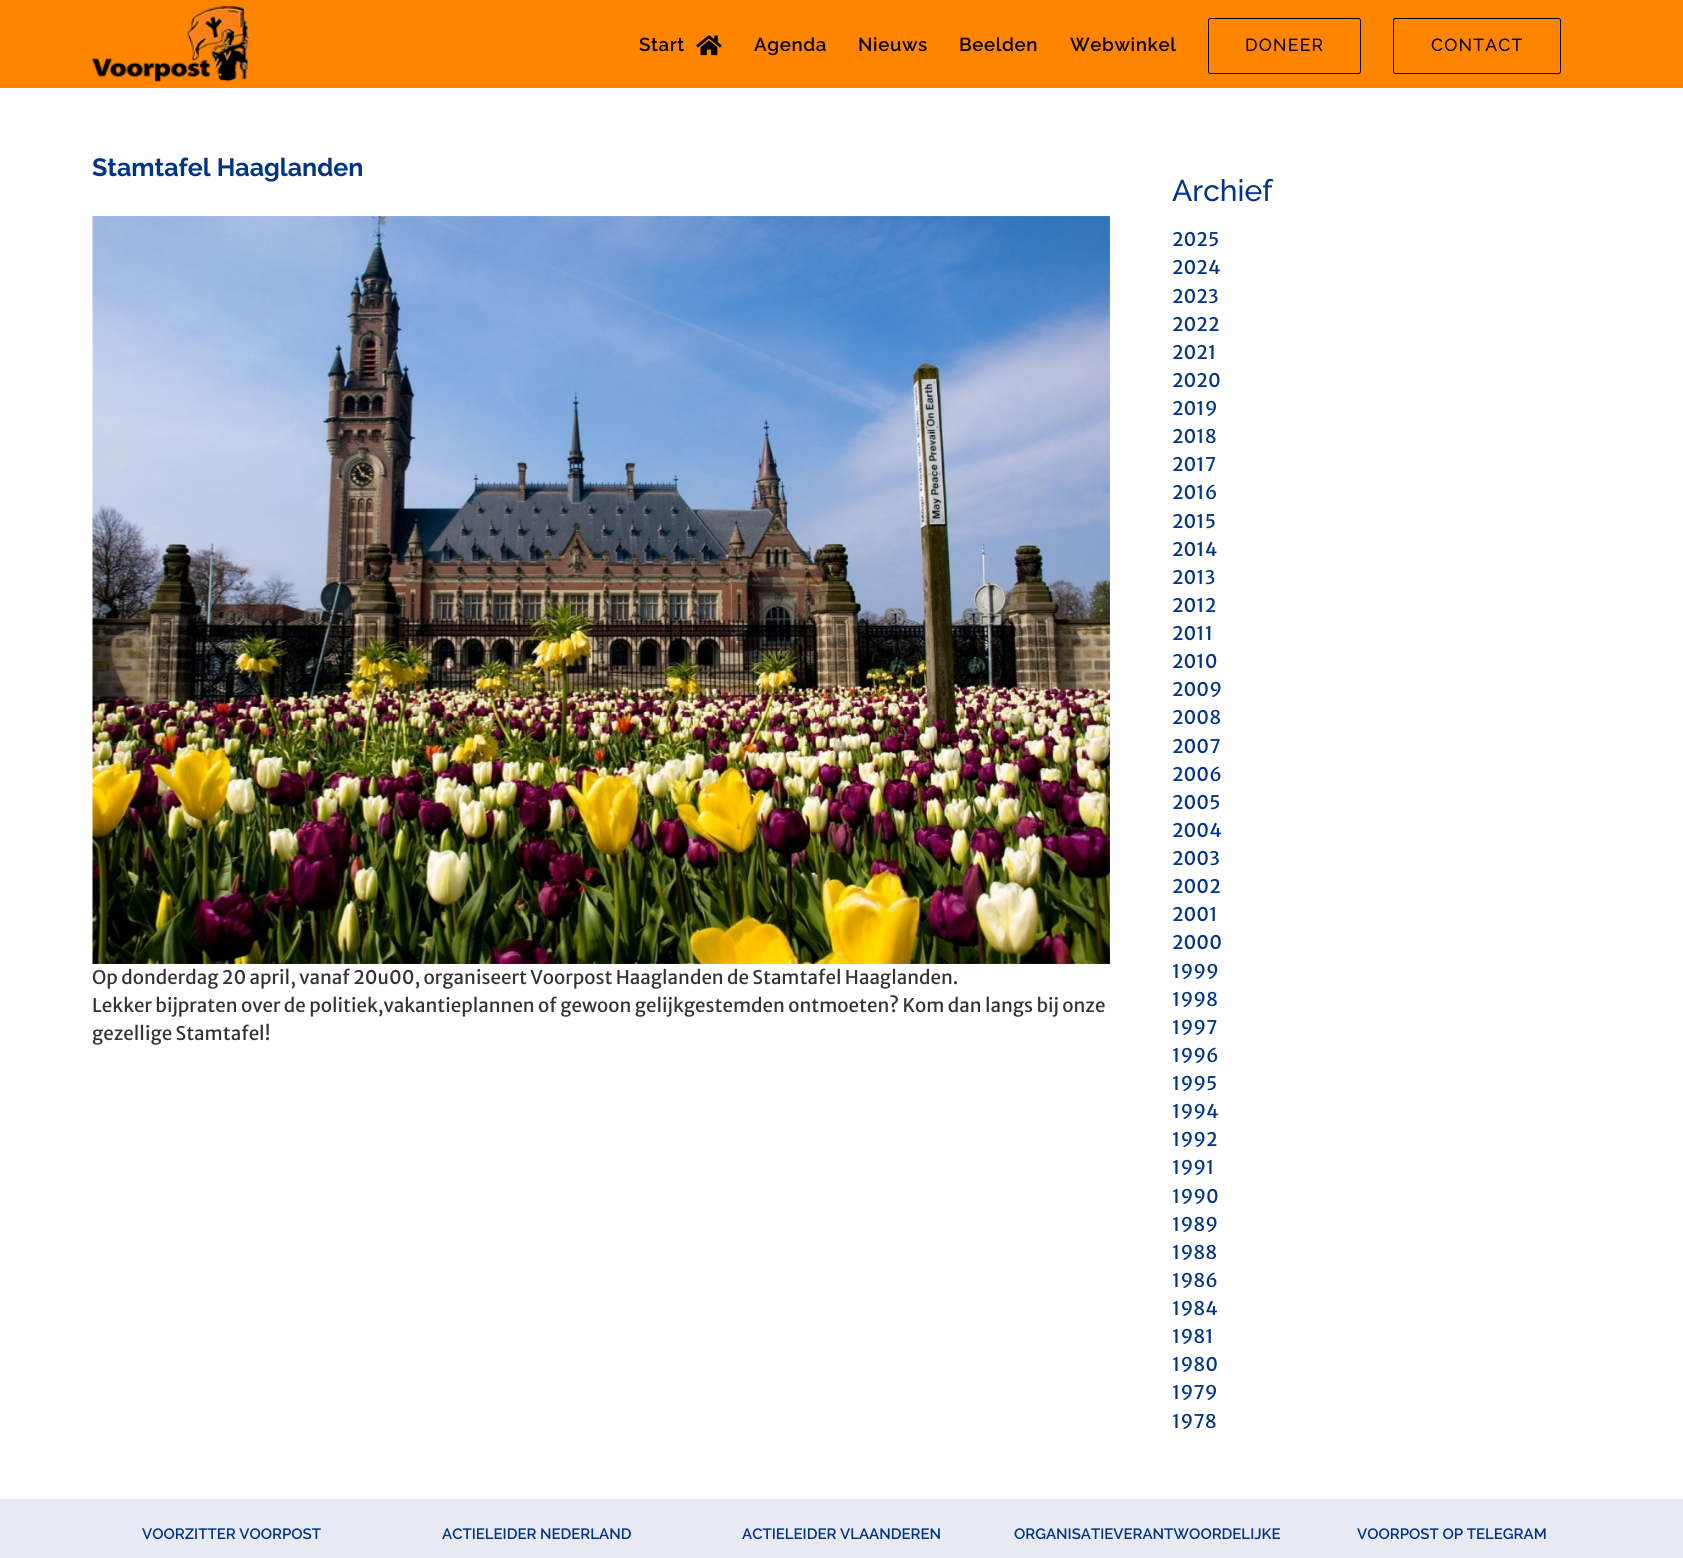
#include <cairo.h>
#include <math.h>
#include <stddef.h>


static void set_color(cairo_t *cr, unsigned color) {
    cairo_set_source_rgb(cr, (color >> 16) / 255.0, (color >> 8 & 255) / 255.0, (color & 255) / 255.0);
}

static void draw_text(cairo_t *cr, double x, double y, const char *s, const char *family, double size, int italic, int bold, unsigned color) {
    cairo_select_font_face(cr, family, italic ? CAIRO_FONT_SLANT_ITALIC : CAIRO_FONT_SLANT_NORMAL,
        bold ? CAIRO_FONT_WEIGHT_BOLD : CAIRO_FONT_WEIGHT_NORMAL);
    cairo_set_font_size(cr, size);
    set_color(cr, color);
    cairo_move_to(cr, x, y);
    cairo_show_text(cr, s);
}

static void draw_spaced(cairo_t *cr, double x, double y, const char *s, double letter, double word) {
    cairo_move_to(cr, x, y);
    while (*s) {
        char ch[5] = {0};
        int n = 0;
        do ch[n++] = *s++; while ((*s & 0xC0) == 0x80);
        cairo_show_text(cr, ch);
        cairo_rel_move_to(cr, letter + word * (*ch == ' '), 0);
    }
}

static void fill_rect(cairo_t *cr, double x, double y, double w, double h, unsigned color) {
    set_color(cr, color);
    cairo_rectangle(cr, x, y, w, h);
    cairo_fill(cr);
}

static void rounded_rect(cairo_t *cr, double x, double y, double w, double h, double r) {
    cairo_new_sub_path(cr);
    cairo_arc(cr, x + w - r, y + h - r, r, 0, M_PI / 2);
    cairo_arc(cr, x + r, y + h - r, r, M_PI / 2, M_PI);
    cairo_arc(cr, x + r, y + r, r, M_PI, 1.5 * M_PI);
    cairo_arc(cr, x + w - r, y + r, r, 1.5 * M_PI, 2 * M_PI);
    cairo_close_path(cr);
}

static void draw_image(cairo_t *cr, const char *path, double x, double y, double w, double h) {
    cairo_surface_t *image = cairo_image_surface_create_from_png(path);
    cairo_save(cr);
    cairo_set_source_surface(cr, image, x, y);
    cairo_rectangle(cr, x, y, w, h);
    cairo_fill(cr);
    cairo_restore(cr);
    cairo_surface_destroy(image);
}

int main(void) {
    cairo_surface_t *surface = cairo_image_surface_create(CAIRO_FORMAT_RGB24, 1683, 1558);
    cairo_t *cr = cairo_create(surface);
    cairo_font_options_t *options = cairo_font_options_create();
    cairo_font_options_set_hint_metrics(options, CAIRO_HINT_METRICS_OFF);
    cairo_font_options_set_hint_style(options, CAIRO_HINT_STYLE_NONE);
    cairo_set_font_options(cr, options);
    cairo_set_miter_limit(cr, 4);
    set_color(cr, 0xFFFFFF);
    cairo_paint(cr);
    fill_rect(cr, 0, 0, 1683, 88, 0xFF8500);
    draw_image(cr, "assets/img1.png", 92, 6, 157, 76);
    cairo_select_font_face(cr, "Raleway SemiBold", CAIRO_FONT_SLANT_NORMAL, CAIRO_FONT_WEIGHT_NORMAL);
    cairo_set_font_size(cr, 18.75);
    set_color(cr, 0x000000);
    draw_spaced(cr, 639, 51, "Start", 0.6, 0);
    draw_image(cr, "assets/img2.png", 696, 35, 26, 21);
    draw_spaced(cr, 754, 51, "Agenda", 0.6, 0);
    draw_spaced(cr, 858, 51, "Nieuws", 0.6, 0);
    draw_spaced(cr, 959, 51, "Beelden", 0.6, 0);
    draw_spaced(cr, 1070, 51, "Webwinkel", 0.6, 0);
    rounded_rect(cr, 1208.5, 18.5, 152, 55, 2);
    cairo_set_line_width(cr, 1);
    cairo_stroke(cr);
    cairo_select_font_face(cr, "Raleway Medium", CAIRO_FONT_SLANT_NORMAL, CAIRO_FONT_WEIGHT_NORMAL);
    cairo_set_font_size(cr, 17.5);
    draw_spaced(cr, 1245, 51, "DONEER", 1.25, 0);
    rounded_rect(cr, 1393.5, 18.5, 167, 55, 2);
    cairo_stroke(cr);
    draw_spaced(cr, 1431, 51, "CONTACT", 1.25, 0);
    draw_text(cr, 92, 176, "Stamtafel Haaglanden", "Raleway", 25, 0, 1, 0x003585);
    draw_image(cr, "assets/img3.png", 92, 216, 1018, 748);
    draw_text(cr, 92, 984, "Op donderdag 20 april, vanaf 20u00, organiseert Voorpost Haaglanden de Stamtafel Haaglanden.", "Merriweather Sans", 18.75, 0, 0, 0x333333);
    draw_text(cr, 92, 1012, "Lekker bijpraten over de politiek,vakantieplannen of gewoon gelijkgestemden ontmoeten? Kom dan langs bij onze", "Merriweather Sans", 18.75, 0, 0, 0x333333);
    draw_text(cr, 92, 1040, "gezellige Stamtafel!", "Merriweather Sans", 18.75, 0, 0, 0x333333);
    draw_text(cr, 1172, 201, "Archief", "Raleway Medium", 30, 0, 0, 0x003585);
    draw_text(cr, 1172, 246, "2025", "Merriweather Sans", 18.75, 0, 0, 0x003585);
    draw_text(cr, 1172, 274, "2024", "Merriweather Sans", 18.75, 0, 0, 0x003585);
    draw_text(cr, 1172, 303, "2023", "Merriweather Sans", 18.75, 0, 0, 0x003585);
    draw_text(cr, 1172, 331, "2022", "Merriweather Sans", 18.75, 0, 0, 0x003585);
    draw_text(cr, 1172, 359, "2021", "Merriweather Sans", 18.75, 0, 0, 0x003585);
    draw_text(cr, 1172, 387, "2020", "Merriweather Sans", 18.75, 0, 0, 0x003585);
    draw_text(cr, 1172, 415, "2019", "Merriweather Sans", 18.75, 0, 0, 0x003585);
    draw_text(cr, 1172, 443, "2018", "Merriweather Sans", 18.75, 0, 0, 0x003585);
    draw_text(cr, 1172, 471, "2017", "Merriweather Sans", 18.75, 0, 0, 0x003585);
    draw_text(cr, 1172, 499, "2016", "Merriweather Sans", 18.75, 0, 0, 0x003585);
    draw_text(cr, 1172, 528, "2015", "Merriweather Sans", 18.75, 0, 0, 0x003585);
    draw_text(cr, 1172, 556, "2014", "Merriweather Sans", 18.75, 0, 0, 0x003585);
    draw_text(cr, 1172, 584, "2013", "Merriweather Sans", 18.75, 0, 0, 0x003585);
    draw_text(cr, 1172, 612, "2012", "Merriweather Sans", 18.75, 0, 0, 0x003585);
    draw_text(cr, 1172, 640, "2011", "Merriweather Sans", 18.75, 0, 0, 0x003585);
    draw_text(cr, 1172, 668, "2010", "Merriweather Sans", 18.75, 0, 0, 0x003585);
    draw_text(cr, 1172, 696, "2009", "Merriweather Sans", 18.75, 0, 0, 0x003585);
    draw_text(cr, 1172, 724, "2008", "Merriweather Sans", 18.75, 0, 0, 0x003585);
    draw_text(cr, 1172, 753, "2007", "Merriweather Sans", 18.75, 0, 0, 0x003585);
    draw_text(cr, 1172, 781, "2006", "Merriweather Sans", 18.75, 0, 0, 0x003585);
    draw_text(cr, 1172, 809, "2005", "Merriweather Sans", 18.75, 0, 0, 0x003585);
    draw_text(cr, 1172, 837, "2004", "Merriweather Sans", 18.75, 0, 0, 0x003585);
    draw_text(cr, 1172, 865, "2003", "Merriweather Sans", 18.75, 0, 0, 0x003585);
    draw_text(cr, 1172, 893, "2002", "Merriweather Sans", 18.75, 0, 0, 0x003585);
    draw_text(cr, 1172, 921, "2001", "Merriweather Sans", 18.75, 0, 0, 0x003585);
    draw_text(cr, 1172, 949, "2000", "Merriweather Sans", 18.75, 0, 0, 0x003585);
    draw_text(cr, 1172, 978, "1999", "Merriweather Sans", 18.75, 0, 0, 0x003585);
    draw_text(cr, 1172, 1006, "1998", "Merriweather Sans", 18.75, 0, 0, 0x003585);
    draw_text(cr, 1172, 1034, "1997", "Merriweather Sans", 18.75, 0, 0, 0x003585);
    draw_text(cr, 1172, 1062, "1996", "Merriweather Sans", 18.75, 0, 0, 0x003585);
    draw_text(cr, 1172, 1090, "1995", "Merriweather Sans", 18.75, 0, 0, 0x003585);
    draw_text(cr, 1172, 1118, "1994", "Merriweather Sans", 18.75, 0, 0, 0x003585);
    draw_text(cr, 1172, 1146, "1992", "Merriweather Sans", 18.75, 0, 0, 0x003585);
    draw_text(cr, 1172, 1174, "1991", "Merriweather Sans", 18.75, 0, 0, 0x003585);
    draw_text(cr, 1172, 1203, "1990", "Merriweather Sans", 18.75, 0, 0, 0x003585);
    draw_text(cr, 1172, 1231, "1989", "Merriweather Sans", 18.75, 0, 0, 0x003585);
    draw_text(cr, 1172, 1259, "1988", "Merriweather Sans", 18.75, 0, 0, 0x003585);
    draw_text(cr, 1172, 1287, "1986", "Merriweather Sans", 18.75, 0, 0, 0x003585);
    draw_text(cr, 1172, 1315, "1984", "Merriweather Sans", 18.75, 0, 0, 0x003585);
    draw_text(cr, 1172, 1343, "1981", "Merriweather Sans", 18.75, 0, 0, 0x003585);
    draw_text(cr, 1172, 1371, "1980", "Merriweather Sans", 18.75, 0, 0, 0x003585);
    draw_text(cr, 1172, 1399, "1979", "Merriweather Sans", 18.75, 0, 0, 0x003585);
    draw_text(cr, 1172, 1428, "1978", "Merriweather Sans", 18.75, 0, 0, 0x003585);
    fill_rect(cr, 0, 1499, 1683, 59, 0xE9E9F3);
    draw_text(cr, 142, 1539, "VOORZITTER VOORPOST", "Raleway SemiBold", 15, 0, 0, 0x003585);
    draw_text(cr, 442, 1539, "ACTIELEIDER NEDERLAND", "Raleway SemiBold", 15, 0, 0, 0x003585);
    draw_text(cr, 742, 1539, "ACTIELEIDER VLAANDEREN", "Raleway SemiBold", 15, 0, 0, 0x003585);
    draw_text(cr, 1014, 1539, "ORGANISATIEVERANTWOORDELIJKE", "Raleway SemiBold", 15, 0, 0, 0x003585);
    draw_text(cr, 1357, 1539, "VOORPOST OP TELEGRAM", "Raleway SemiBold", 15, 0, 0, 0x003585);
    cairo_surface_write_to_png(surface, "output.png");
    cairo_font_options_destroy(options);
    cairo_destroy(cr);
    cairo_surface_destroy(surface);
    return 0;
}
